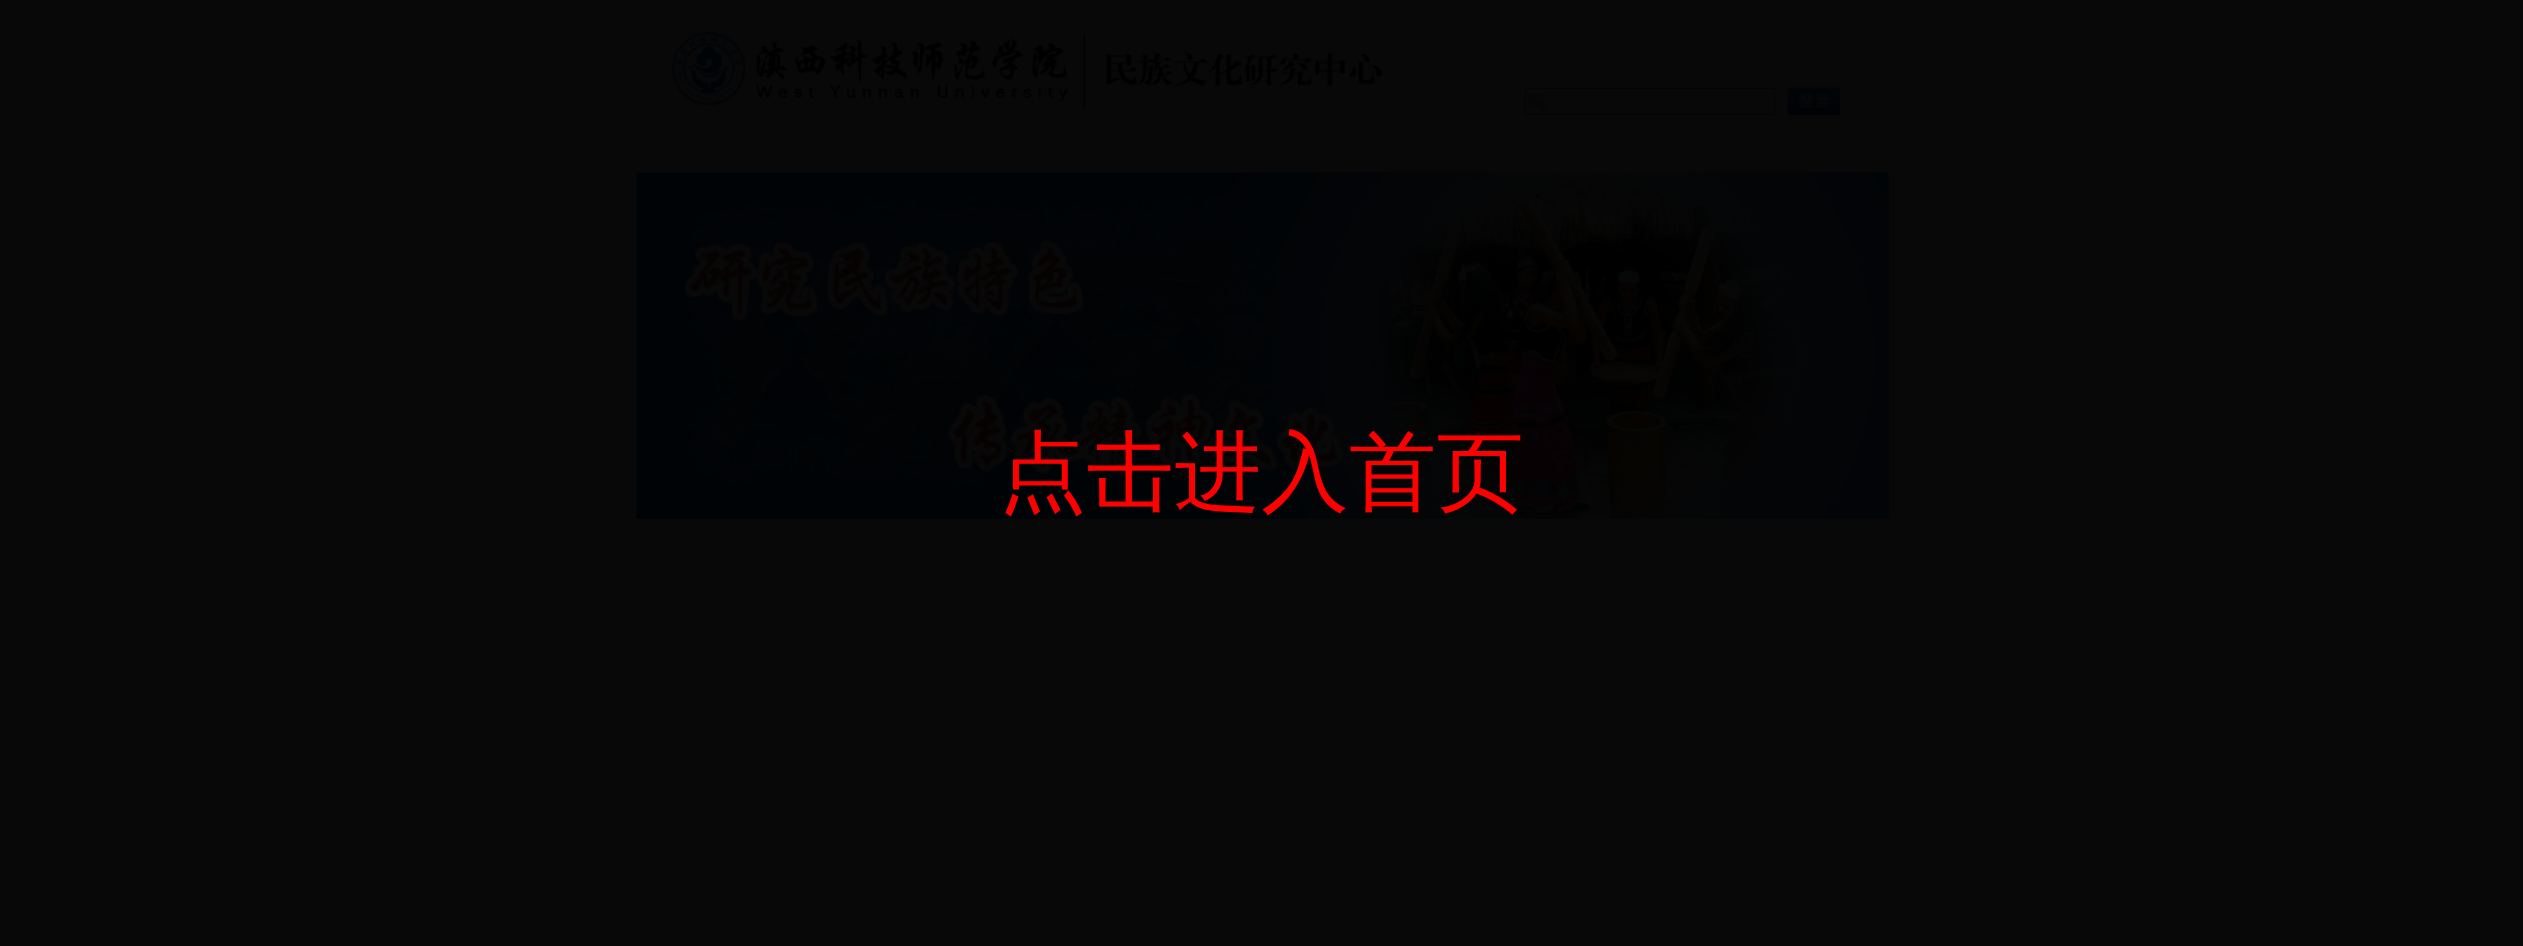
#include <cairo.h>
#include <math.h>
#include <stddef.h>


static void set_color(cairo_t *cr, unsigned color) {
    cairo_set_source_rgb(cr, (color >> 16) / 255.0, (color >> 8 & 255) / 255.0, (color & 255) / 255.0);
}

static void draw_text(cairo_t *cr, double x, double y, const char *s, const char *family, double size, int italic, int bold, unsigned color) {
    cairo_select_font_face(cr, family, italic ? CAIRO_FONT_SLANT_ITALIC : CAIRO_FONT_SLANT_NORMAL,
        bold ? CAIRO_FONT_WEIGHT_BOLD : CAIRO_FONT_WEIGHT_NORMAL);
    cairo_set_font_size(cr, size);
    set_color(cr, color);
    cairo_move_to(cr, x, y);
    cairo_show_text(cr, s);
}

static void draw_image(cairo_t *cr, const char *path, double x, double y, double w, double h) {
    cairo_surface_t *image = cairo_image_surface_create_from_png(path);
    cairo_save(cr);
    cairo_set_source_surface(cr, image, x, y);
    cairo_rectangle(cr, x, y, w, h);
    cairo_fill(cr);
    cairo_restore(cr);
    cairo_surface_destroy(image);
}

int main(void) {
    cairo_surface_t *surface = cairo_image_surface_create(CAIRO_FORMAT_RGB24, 2523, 946);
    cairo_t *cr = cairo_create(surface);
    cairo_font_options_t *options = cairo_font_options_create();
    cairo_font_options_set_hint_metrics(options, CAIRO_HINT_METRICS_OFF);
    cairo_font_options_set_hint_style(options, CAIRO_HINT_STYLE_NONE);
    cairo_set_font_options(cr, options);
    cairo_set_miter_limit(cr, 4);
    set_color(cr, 0x080808);
    cairo_paint(cr);
    draw_image(cr, "assets/img1.png", 672, 32, 711, 77);
    draw_image(cr, "assets/img2.png", 1528, 92, 20, 20);
    cairo_rectangle(cr, 1525.5, 88.5, 249, 26);
    set_color(cr, 0x040404);
    cairo_set_line_width(cr, 1);
    cairo_stroke(cr);
    draw_image(cr, "assets/img3.png", 1787, 87, 53, 28);
    draw_image(cr, "assets/img4.png", 636, 172, 1253, 347);
    draw_text(cr, 999, 502, "点击进入首页", "WenQuanYi Zen Hei Medium", 87.5, 0, 0, 0xFF0000);
    cairo_surface_write_to_png(surface, "output.png");
    cairo_font_options_destroy(options);
    cairo_destroy(cr);
    cairo_surface_destroy(surface);
    return 0;
}
